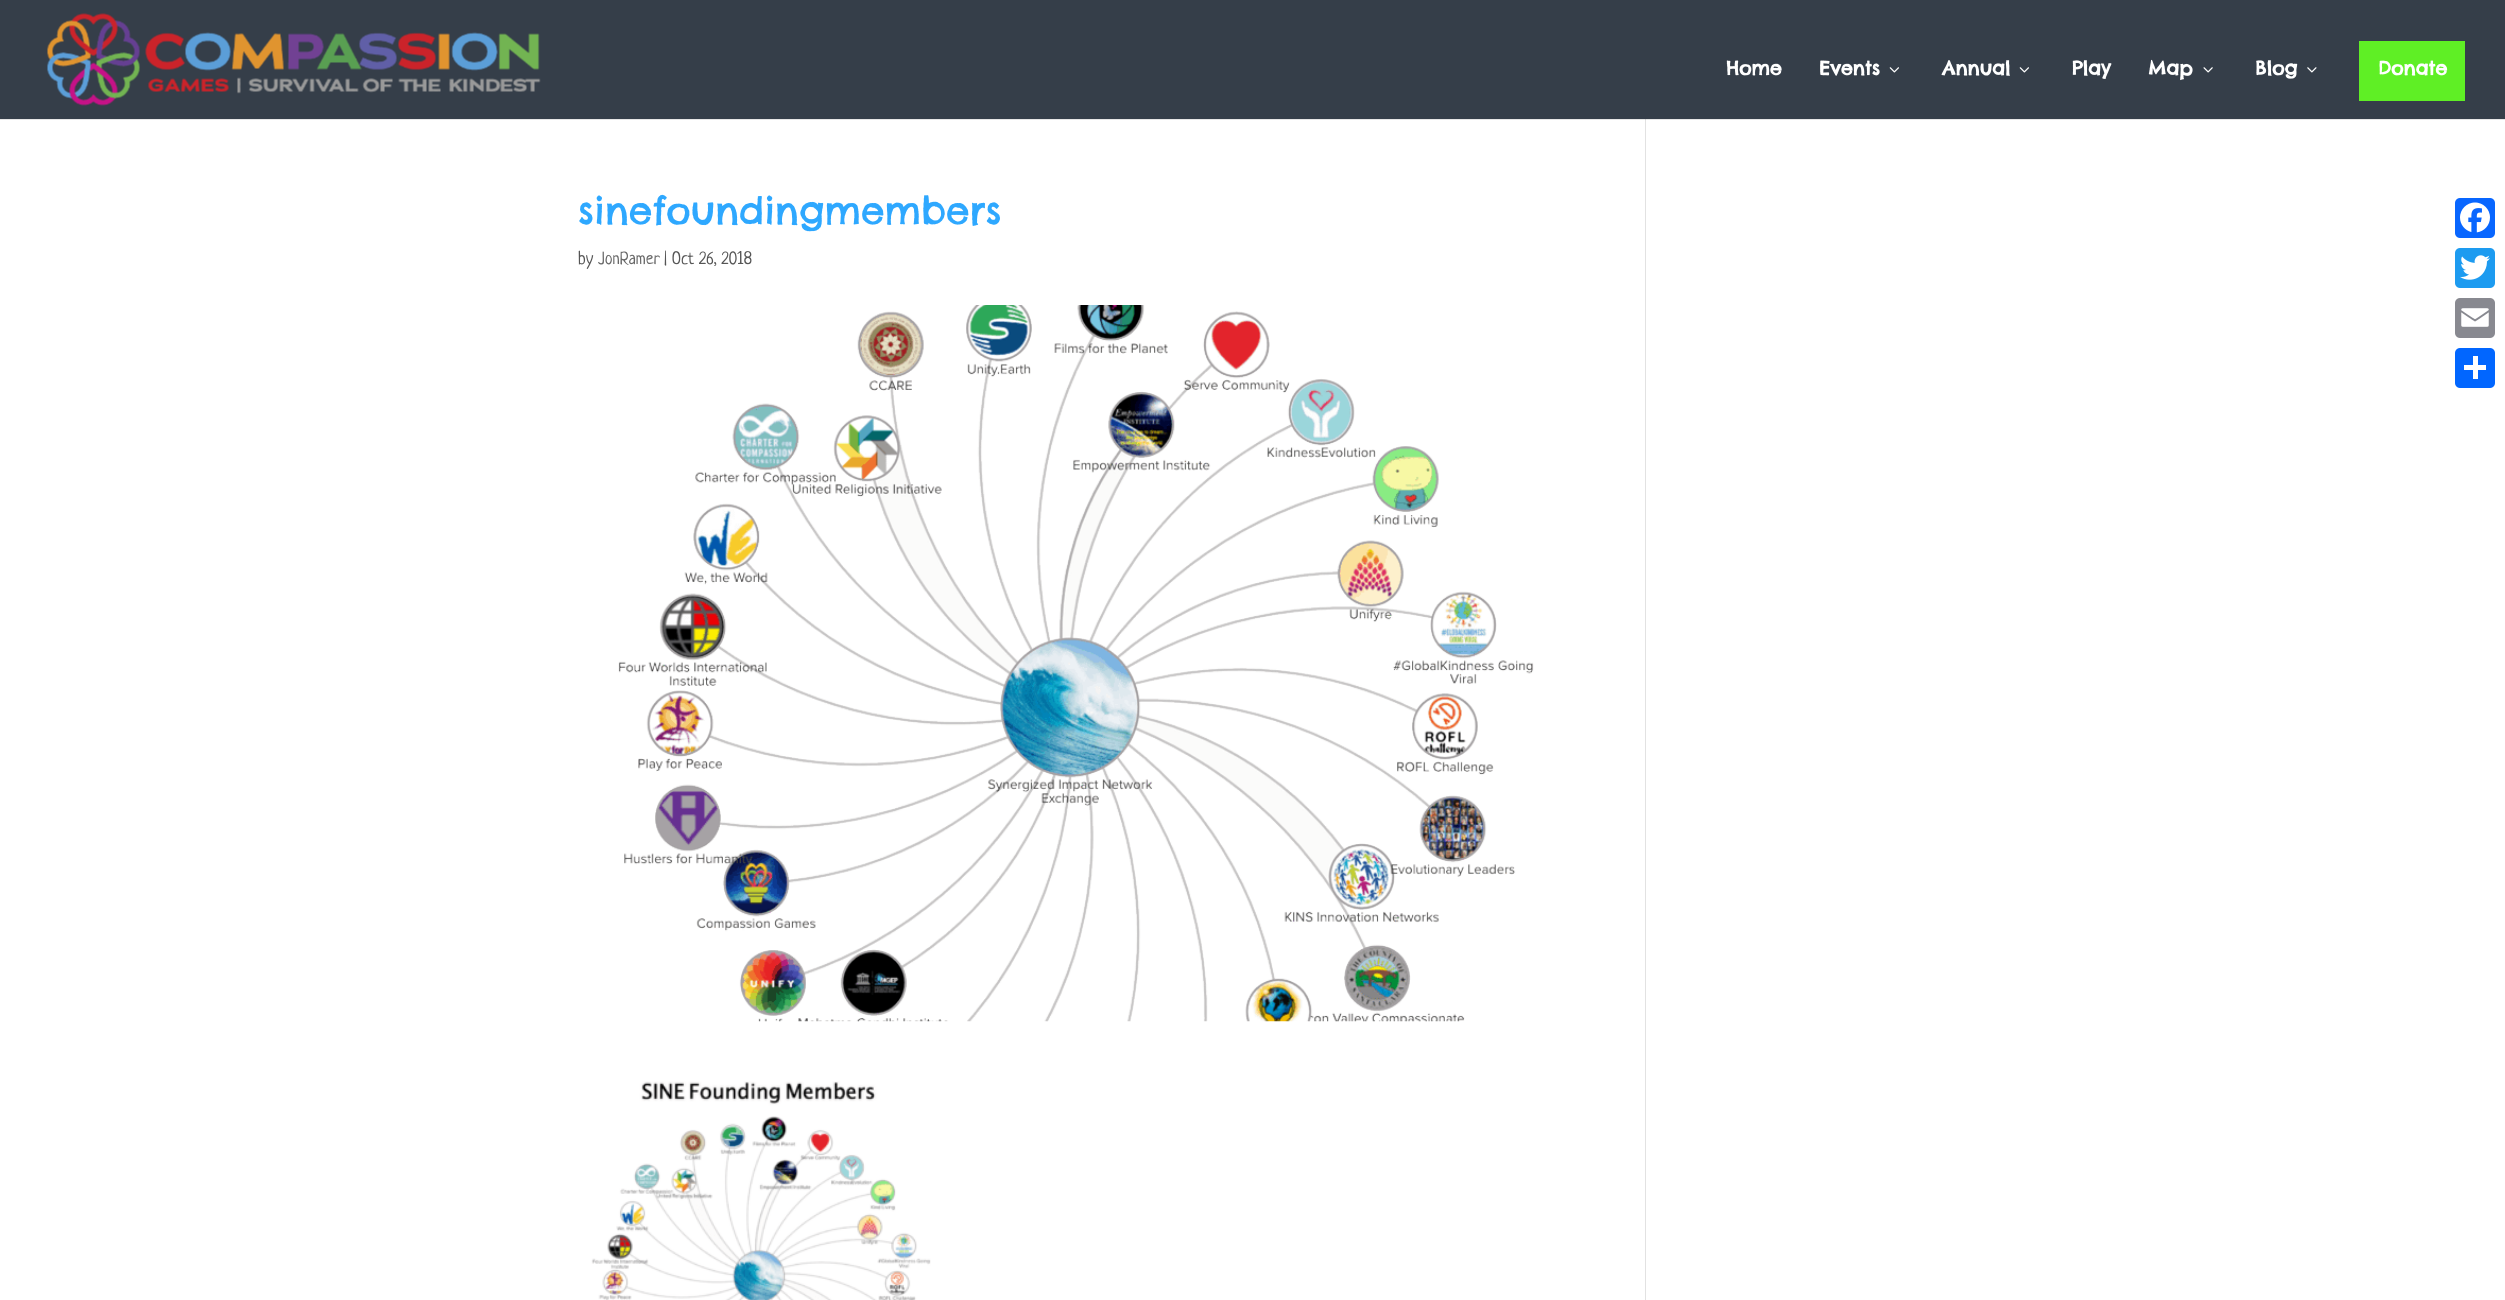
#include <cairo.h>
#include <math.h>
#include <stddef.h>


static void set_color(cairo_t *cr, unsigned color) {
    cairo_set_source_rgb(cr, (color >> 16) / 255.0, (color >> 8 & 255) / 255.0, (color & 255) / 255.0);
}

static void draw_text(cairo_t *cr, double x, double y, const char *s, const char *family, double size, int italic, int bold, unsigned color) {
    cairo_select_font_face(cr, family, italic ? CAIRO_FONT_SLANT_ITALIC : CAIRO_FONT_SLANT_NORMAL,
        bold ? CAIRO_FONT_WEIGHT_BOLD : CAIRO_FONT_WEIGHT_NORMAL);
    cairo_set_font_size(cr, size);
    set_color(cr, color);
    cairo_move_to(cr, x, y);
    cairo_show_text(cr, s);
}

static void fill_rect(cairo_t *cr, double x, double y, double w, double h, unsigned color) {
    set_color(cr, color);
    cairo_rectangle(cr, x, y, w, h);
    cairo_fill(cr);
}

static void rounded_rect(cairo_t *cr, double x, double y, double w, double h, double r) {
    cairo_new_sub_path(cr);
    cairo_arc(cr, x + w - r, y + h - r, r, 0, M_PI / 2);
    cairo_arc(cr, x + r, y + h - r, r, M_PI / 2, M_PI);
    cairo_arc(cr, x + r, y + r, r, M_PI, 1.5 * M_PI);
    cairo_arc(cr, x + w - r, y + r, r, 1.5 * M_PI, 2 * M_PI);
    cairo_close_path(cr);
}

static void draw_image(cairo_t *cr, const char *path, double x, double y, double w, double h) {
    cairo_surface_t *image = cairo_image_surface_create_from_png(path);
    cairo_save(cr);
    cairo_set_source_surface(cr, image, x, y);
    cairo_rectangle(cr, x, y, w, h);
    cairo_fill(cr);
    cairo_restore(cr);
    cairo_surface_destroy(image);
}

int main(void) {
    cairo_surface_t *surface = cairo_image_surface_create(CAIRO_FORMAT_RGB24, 2505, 1300);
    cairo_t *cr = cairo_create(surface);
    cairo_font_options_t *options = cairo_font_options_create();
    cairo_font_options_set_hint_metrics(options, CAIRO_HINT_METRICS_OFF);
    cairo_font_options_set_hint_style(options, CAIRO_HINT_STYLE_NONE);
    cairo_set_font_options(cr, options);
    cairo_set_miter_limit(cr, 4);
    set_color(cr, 0xFFFFFF);
    cairo_paint(cr);
    fill_rect(cr, 0, 119, 2505, 1, 0xE6E6E6);
    fill_rect(cr, 0, 0, 2505, 119, 0x353E49);
    draw_image(cr, "assets/img1.png", 47, 13, 494, 93);
    draw_text(cr, 1726, 75, "Home", "Chelsea Market", 19, 0, 1, 0xFFFFFF);
    draw_text(cr, 1819, 75, "Events", "Chelsea Market", 19, 0, 1, 0xFFFFFF);
    draw_image(cr, "assets/img2.png", 1889, 67, 10, 6);
    draw_text(cr, 1942, 75, "Annual", "Chelsea Market", 19, 0, 1, 0xFFFFFF);
    draw_image(cr, "assets/img2.png", 2019, 67, 10, 6);
    draw_text(cr, 2072, 75, "Play", "Chelsea Market", 19, 0, 1, 0xFFFFFF);
    draw_text(cr, 2148, 75, "Map", "Chelsea Market", 19, 0, 1, 0xFFFFFF);
    draw_image(cr, "assets/img3.png", 2203, 67, 10, 6);
    draw_text(cr, 2255, 75, "Blog", "Chelsea Market", 19, 0, 1, 0xFFFFFF);
    draw_image(cr, "assets/img4.png", 2307, 67, 10, 6);
    fill_rect(cr, 2359, 41, 106, 60, 0x5FEF25);
    draw_text(cr, 2378, 75, "Donate", "Chelsea Market", 19, 0, 1, 0xFFFFFF);
    draw_text(cr, 578, 224, "sinefoundingmembers", "Chelsea Market", 37.5, 0, 0, 0x2EA8FF);
    draw_text(cr, 578, 264, "by", "Neucha", 17.5, 0, 0, 0x555555);
    draw_text(cr, 598, 264, "JonRamer", "Neucha", 17.5, 0, 0, 0x666666);
    draw_text(cr, 664, 264, "| Oct 26, 2018", "Neucha", 17.5, 0, 0, 0x555555);
    draw_image(cr, "assets/img5.png", 618, 305, 916, 717);
    draw_image(cr, "assets/img6.png", 591, 1081, 340, 219);
    fill_rect(cr, 1645, 119, 1, 1181, 0xE2E2E2);
    fill_rect(cr, 1645, 119, 1, 1, 0xCBCBCB);
    set_color(cr, 0x0866FF);
    rounded_rect(cr, 2455, 198, 40, 40, 5);
    cairo_fill(cr);
    draw_image(cr, "assets/img7.png", 2460, 202, 30, 31);
    set_color(cr, 0x1D9BF0);
    rounded_rect(cr, 2455, 248, 40, 40, 5);
    cairo_fill(cr);
    draw_image(cr, "assets/img8.png", 2460, 255, 30, 25);
    set_color(cr, 0x888990);
    rounded_rect(cr, 2455, 298, 40, 40, 5);
    cairo_fill(cr);
    draw_image(cr, "assets/img9.png", 2461, 308, 28, 19);
    set_color(cr, 0x0166FF);
    rounded_rect(cr, 2455, 348, 40, 40, 5);
    cairo_fill(cr);
    fill_rect(cr, 2473, 356, 5, 23, 0xFFFFFF);
    fill_rect(cr, 2464, 365, 22, 5, 0xFFFFFF);
    cairo_surface_write_to_png(surface, "output.png");
    cairo_font_options_destroy(options);
    cairo_destroy(cr);
    cairo_surface_destroy(surface);
    return 0;
}
